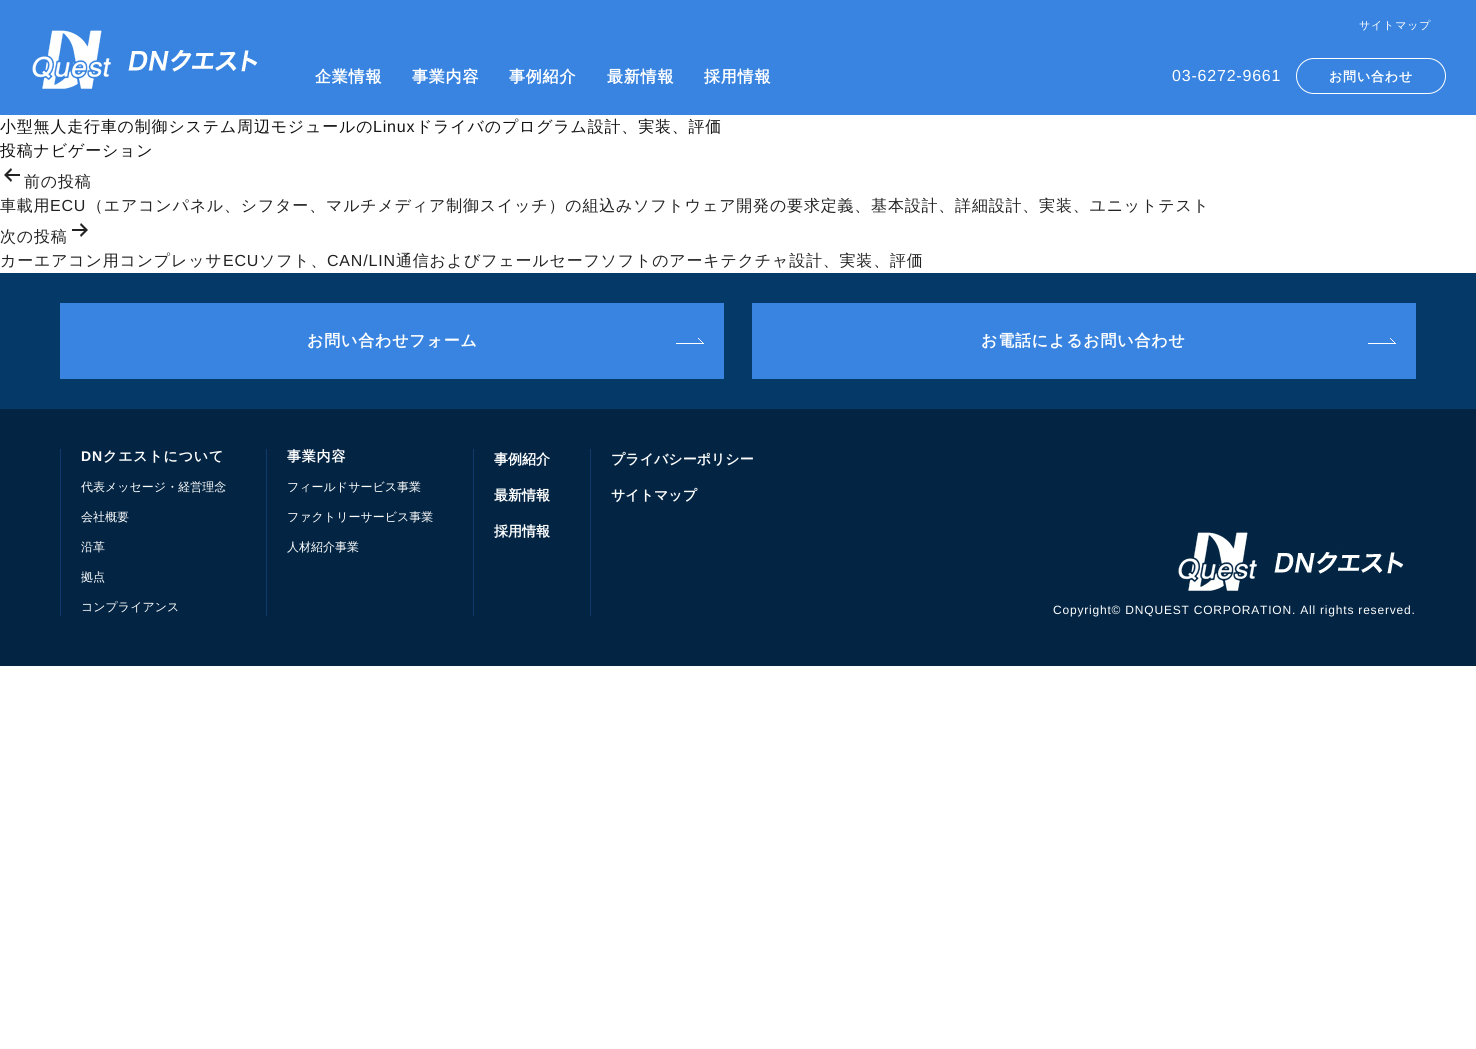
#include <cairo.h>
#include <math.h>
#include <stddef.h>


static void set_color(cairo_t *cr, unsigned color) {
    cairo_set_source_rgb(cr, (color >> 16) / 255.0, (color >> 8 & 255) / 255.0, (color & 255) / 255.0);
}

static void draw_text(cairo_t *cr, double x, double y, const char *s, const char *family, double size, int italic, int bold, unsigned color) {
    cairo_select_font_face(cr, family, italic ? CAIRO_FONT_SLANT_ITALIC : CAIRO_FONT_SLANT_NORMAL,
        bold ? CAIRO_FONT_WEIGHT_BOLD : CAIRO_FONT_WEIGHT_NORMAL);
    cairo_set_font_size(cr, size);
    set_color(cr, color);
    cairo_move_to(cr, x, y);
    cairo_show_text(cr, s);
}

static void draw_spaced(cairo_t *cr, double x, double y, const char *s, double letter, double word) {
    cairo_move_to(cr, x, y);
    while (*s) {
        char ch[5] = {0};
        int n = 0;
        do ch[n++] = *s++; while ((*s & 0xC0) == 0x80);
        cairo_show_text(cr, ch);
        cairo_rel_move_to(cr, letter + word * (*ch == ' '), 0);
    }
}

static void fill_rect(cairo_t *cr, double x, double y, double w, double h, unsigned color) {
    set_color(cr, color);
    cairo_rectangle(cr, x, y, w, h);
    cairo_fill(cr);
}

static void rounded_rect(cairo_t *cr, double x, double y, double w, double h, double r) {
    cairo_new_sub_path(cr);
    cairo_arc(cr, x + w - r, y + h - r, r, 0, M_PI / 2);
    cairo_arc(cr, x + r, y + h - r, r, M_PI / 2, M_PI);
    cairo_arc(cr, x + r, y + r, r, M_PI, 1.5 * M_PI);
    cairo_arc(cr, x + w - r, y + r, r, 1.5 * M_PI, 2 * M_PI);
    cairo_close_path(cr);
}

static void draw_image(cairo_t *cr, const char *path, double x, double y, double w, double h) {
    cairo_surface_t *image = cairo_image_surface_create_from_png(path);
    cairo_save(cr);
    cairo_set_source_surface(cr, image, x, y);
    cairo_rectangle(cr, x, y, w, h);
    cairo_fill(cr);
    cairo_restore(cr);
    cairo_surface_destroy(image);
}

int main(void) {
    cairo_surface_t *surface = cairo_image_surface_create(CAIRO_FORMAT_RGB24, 1476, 1049);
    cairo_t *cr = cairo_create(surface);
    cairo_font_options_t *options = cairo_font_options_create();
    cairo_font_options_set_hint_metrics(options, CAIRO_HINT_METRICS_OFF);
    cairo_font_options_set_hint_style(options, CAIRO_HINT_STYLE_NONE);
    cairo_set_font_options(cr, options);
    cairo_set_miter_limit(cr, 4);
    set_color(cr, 0xFFFFFF);
    cairo_paint(cr);
    fill_rect(cr, 0, 0, 1476, 115, 0x3884E0);
    cairo_select_font_face(cr, "WenQuanYi Zen Hei Medium", CAIRO_FONT_SLANT_NORMAL, CAIRO_FONT_WEIGHT_NORMAL);
    cairo_set_font_size(cr, 11);
    set_color(cr, 0xFFFFFF);
    draw_spaced(cr, 1359, 29, "サイトマップ", 0.8, 0);
    draw_image(cr, "assets/img1.png", 32, 30, 226, 59);
    cairo_select_font_face(cr, "WenQuanYi Zen Hei", CAIRO_FONT_SLANT_NORMAL, CAIRO_FONT_WEIGHT_BOLD);
    cairo_set_font_size(cr, 16);
    draw_spaced(cr, 315, 82, "企業情報", 0.8, 0);
    draw_spaced(cr, 412, 82, "事業内容", 0.8, 0);
    draw_spaced(cr, 509, 82, "事例紹介", 0.8, 0);
    draw_spaced(cr, 607, 82, "最新情報", 0.8, 0);
    draw_spaced(cr, 704, 82, "採用情報", 0.8, 0);
    cairo_select_font_face(cr, "Liberation Sans", CAIRO_FONT_SLANT_NORMAL, CAIRO_FONT_WEIGHT_NORMAL);
    draw_spaced(cr, 1172, 81, "03-6272-9661", 0.8, 0);
    rounded_rect(cr, 1296.5, 58.5, 149, 35, 17.5);
    cairo_set_line_width(cr, 1);
    cairo_stroke(cr);
    cairo_select_font_face(cr, "WenQuanYi Zen Hei", CAIRO_FONT_SLANT_NORMAL, CAIRO_FONT_WEIGHT_BOLD);
    cairo_set_font_size(cr, 13);
    draw_spaced(cr, 1329, 81, "お問い合わせ", 0.8, 0);
    cairo_select_font_face(cr, "WenQuanYi Zen Hei Medium", CAIRO_FONT_SLANT_NORMAL, CAIRO_FONT_WEIGHT_NORMAL);
    cairo_set_font_size(cr, 16);
    set_color(cr, 0x111111);
    draw_spaced(cr, 0, 132, "小型無人走行車の制御システム周辺モジュールの", 0.8, 0);
    cairo_select_font_face(cr, "Liberation Sans", CAIRO_FONT_SLANT_NORMAL, CAIRO_FONT_WEIGHT_NORMAL);
    draw_spaced(cr, 373, 132, "Linux", 0.8, 0);
    cairo_select_font_face(cr, "WenQuanYi Zen Hei Medium", CAIRO_FONT_SLANT_NORMAL, CAIRO_FONT_WEIGHT_NORMAL);
    draw_spaced(cr, 416, 132, "ドライバのプログラム設計、実装、評価", 0.8, 0);
    draw_spaced(cr, 0, 156, "投稿ナビゲーション", 0.8, 0);
    draw_image(cr, "assets/img2.png", 4, 168, 16, 14);
    set_color(cr, 0x222222);
    draw_spaced(cr, 24, 187, "前の投稿", 0.8, 0);
    draw_spaced(cr, 0, 211, "車載用", 0.8, 0);
    cairo_select_font_face(cr, "Liberation Sans", CAIRO_FONT_SLANT_NORMAL, CAIRO_FONT_WEIGHT_NORMAL);
    draw_spaced(cr, 50, 211, "ECU", 0.8, 0);
    cairo_select_font_face(cr, "WenQuanYi Zen Hei Medium", CAIRO_FONT_SLANT_NORMAL, CAIRO_FONT_WEIGHT_NORMAL);
    draw_spaced(cr, 87, 211, "（エアコンパネル、シフター、マルチメディア制御スイッチ）の組込みソフトウェア開発の要求定義、基本設計、詳細設計、実装、ユニットテスト", 0.8, 0);
    draw_spaced(cr, 0, 242, "次の投稿", 0.8, 0);
    draw_image(cr, "assets/img3.png", 72, 223, 16, 14);
    draw_spaced(cr, 0, 266, "カーエアコン用コンプレッサ", 0.8, 0);
    cairo_select_font_face(cr, "Liberation Sans", CAIRO_FONT_SLANT_NORMAL, CAIRO_FONT_WEIGHT_NORMAL);
    draw_spaced(cr, 223, 266, "ECU", 0.8, 0);
    cairo_select_font_face(cr, "WenQuanYi Zen Hei Medium", CAIRO_FONT_SLANT_NORMAL, CAIRO_FONT_WEIGHT_NORMAL);
    draw_spaced(cr, 259, 266, "ソフト、", 0.8, 0);
    cairo_select_font_face(cr, "Liberation Sans", CAIRO_FONT_SLANT_NORMAL, CAIRO_FONT_WEIGHT_NORMAL);
    draw_spaced(cr, 327, 266, "CAN/LIN", 0.8, 0);
    cairo_select_font_face(cr, "WenQuanYi Zen Hei Medium", CAIRO_FONT_SLANT_NORMAL, CAIRO_FONT_WEIGHT_NORMAL);
    draw_spaced(cr, 396, 266, "通信およびフェールセーフソフトのアーキテクチャ設計、実装、評価", 0.8, 0);
    fill_rect(cr, 0, 409, 1476, 257, 0x032543);
    fill_rect(cr, 0, 273, 1476, 136, 0x053967);
    fill_rect(cr, 60, 303, 664, 76, 0x3884E0);
    cairo_select_font_face(cr, "WenQuanYi Zen Hei", CAIRO_FONT_SLANT_NORMAL, CAIRO_FONT_WEIGHT_BOLD);
    set_color(cr, 0xFFFFFF);
    draw_spaced(cr, 307, 346, "お問い合わせフォーム", 0.8, 0);
    draw_image(cr, "assets/img4.png", 676, 338, 28, 6);
    fill_rect(cr, 752, 303, 664, 76, 0x3884E0);
    set_color(cr, 0xFFFFFF);
    draw_spaced(cr, 981, 346, "お電話によるお問い合わせ", 0.8, 0);
    draw_image(cr, "assets/img4.png", 1368, 338, 28, 6);
    fill_rect(cr, 60, 449, 1, 167, 0x113A6C);
    cairo_select_font_face(cr, "Liberation Sans", CAIRO_FONT_SLANT_NORMAL, CAIRO_FONT_WEIGHT_BOLD);
    cairo_set_font_size(cr, 14);
    set_color(cr, 0xFFFFFF);
    draw_spaced(cr, 81, 461, "DN", 0.8, 0);
    cairo_select_font_face(cr, "WenQuanYi Zen Hei", CAIRO_FONT_SLANT_NORMAL, CAIRO_FONT_WEIGHT_BOLD);
    draw_spaced(cr, 103, 461, "クエストについて", 0.8, 0);
    draw_text(cr, 81, 491, "代表メッセージ・経営理念", "WenQuanYi Zen Hei Medium", 12, 0, 0, 0xFFFFFF);
    draw_text(cr, 81, 521, "会社概要", "WenQuanYi Zen Hei Medium", 12, 0, 0, 0xFFFFFF);
    draw_text(cr, 81, 551, "沿革", "WenQuanYi Zen Hei Medium", 12, 0, 0, 0xFFFFFF);
    draw_text(cr, 81, 581, "拠点", "WenQuanYi Zen Hei Medium", 12, 0, 0, 0xFFFFFF);
    draw_text(cr, 81, 611, "コンプライアンス", "WenQuanYi Zen Hei Medium", 12, 0, 0, 0xFFFFFF);
    fill_rect(cr, 266, 449, 1, 167, 0x113A6C);
    cairo_select_font_face(cr, "WenQuanYi Zen Hei", CAIRO_FONT_SLANT_NORMAL, CAIRO_FONT_WEIGHT_BOLD);
    cairo_set_font_size(cr, 14);
    set_color(cr, 0xFFFFFF);
    draw_spaced(cr, 287, 461, "事業内容", 0.8, 0);
    draw_text(cr, 287, 491, "フィールドサービス事業", "WenQuanYi Zen Hei Medium", 12, 0, 0, 0xFFFFFF);
    draw_text(cr, 287, 521, "ファクトリーサービス事業", "WenQuanYi Zen Hei Medium", 12, 0, 0, 0xFFFFFF);
    draw_text(cr, 287, 551, "人材紹介事業", "WenQuanYi Zen Hei Medium", 12, 0, 0, 0xFFFFFF);
    fill_rect(cr, 473, 449, 1, 167, 0x113A6C);
    draw_text(cr, 494, 464, "事例紹介", "WenQuanYi Zen Hei", 14, 0, 1, 0xFFFFFF);
    draw_text(cr, 494, 500, "最新情報", "WenQuanYi Zen Hei", 14, 0, 1, 0xFFFFFF);
    draw_text(cr, 494, 536, "採用情報", "WenQuanYi Zen Hei", 14, 0, 1, 0xFFFFFF);
    fill_rect(cr, 590, 449, 1, 167, 0x113A6C);
    draw_text(cr, 611, 464, "プライバシーポリシー", "WenQuanYi Zen Hei", 14, 0, 1, 0xFFFFFF);
    draw_text(cr, 611, 500, "サイトマップ", "WenQuanYi Zen Hei", 14, 0, 1, 0xFFFFFF);
    draw_image(cr, "assets/img5.png", 1178, 532, 226, 59);
    cairo_select_font_face(cr, "Liberation Sans", CAIRO_FONT_SLANT_NORMAL, CAIRO_FONT_WEIGHT_NORMAL);
    cairo_set_font_size(cr, 12);
    draw_spaced(cr, 1053, 614, "Copyright© DNQUEST CORPORATION. All rights reserved.", 0.8, 0);
    cairo_surface_write_to_png(surface, "output.png");
    cairo_font_options_destroy(options);
    cairo_destroy(cr);
    cairo_surface_destroy(surface);
    return 0;
}
